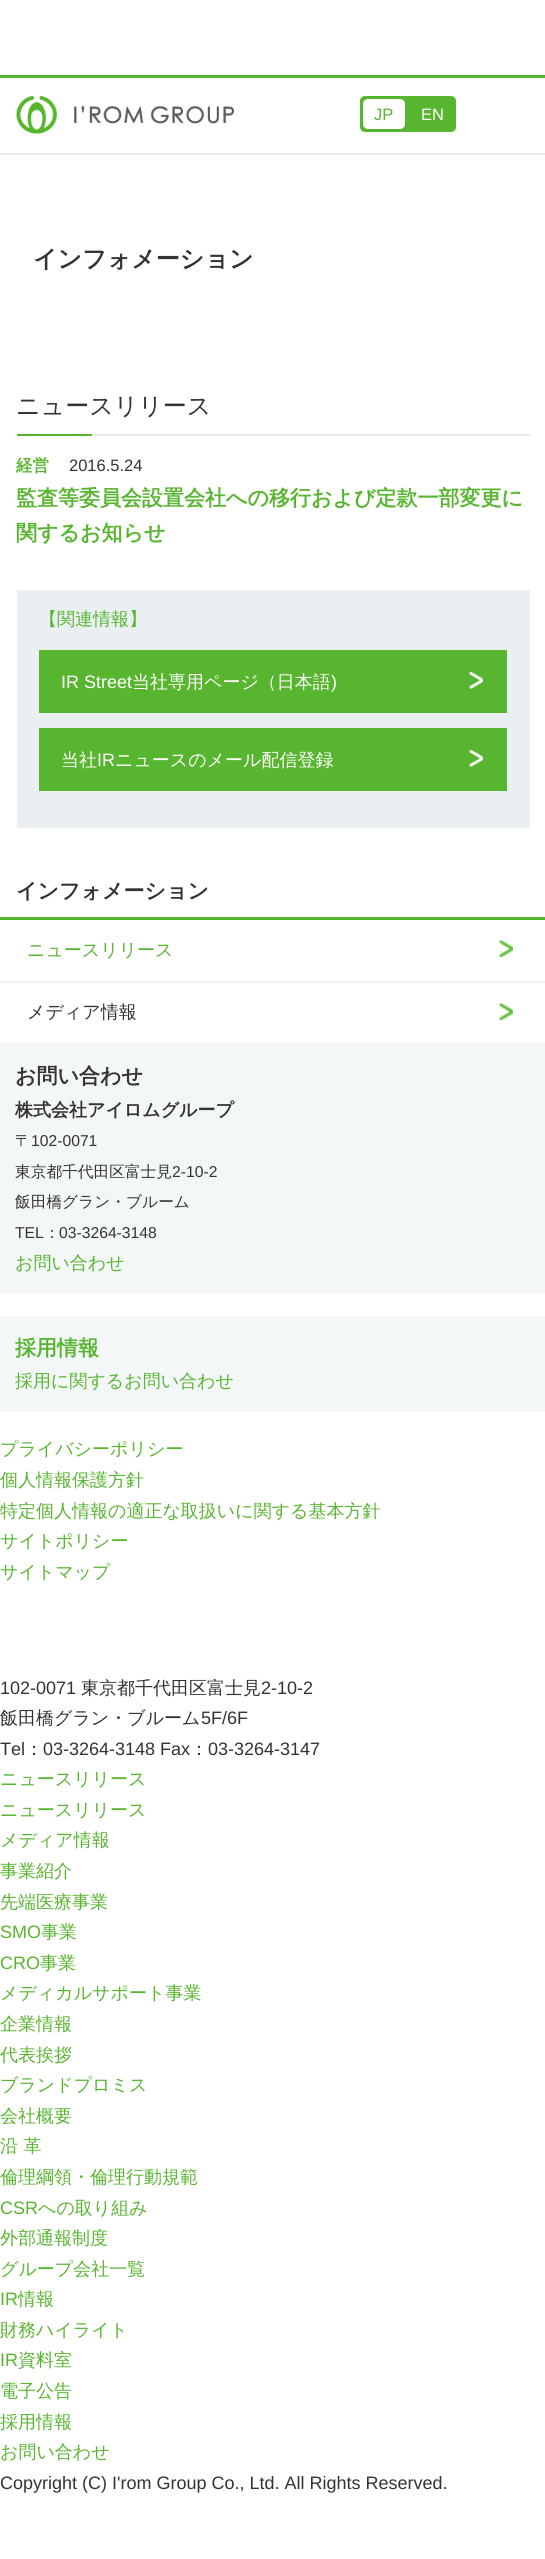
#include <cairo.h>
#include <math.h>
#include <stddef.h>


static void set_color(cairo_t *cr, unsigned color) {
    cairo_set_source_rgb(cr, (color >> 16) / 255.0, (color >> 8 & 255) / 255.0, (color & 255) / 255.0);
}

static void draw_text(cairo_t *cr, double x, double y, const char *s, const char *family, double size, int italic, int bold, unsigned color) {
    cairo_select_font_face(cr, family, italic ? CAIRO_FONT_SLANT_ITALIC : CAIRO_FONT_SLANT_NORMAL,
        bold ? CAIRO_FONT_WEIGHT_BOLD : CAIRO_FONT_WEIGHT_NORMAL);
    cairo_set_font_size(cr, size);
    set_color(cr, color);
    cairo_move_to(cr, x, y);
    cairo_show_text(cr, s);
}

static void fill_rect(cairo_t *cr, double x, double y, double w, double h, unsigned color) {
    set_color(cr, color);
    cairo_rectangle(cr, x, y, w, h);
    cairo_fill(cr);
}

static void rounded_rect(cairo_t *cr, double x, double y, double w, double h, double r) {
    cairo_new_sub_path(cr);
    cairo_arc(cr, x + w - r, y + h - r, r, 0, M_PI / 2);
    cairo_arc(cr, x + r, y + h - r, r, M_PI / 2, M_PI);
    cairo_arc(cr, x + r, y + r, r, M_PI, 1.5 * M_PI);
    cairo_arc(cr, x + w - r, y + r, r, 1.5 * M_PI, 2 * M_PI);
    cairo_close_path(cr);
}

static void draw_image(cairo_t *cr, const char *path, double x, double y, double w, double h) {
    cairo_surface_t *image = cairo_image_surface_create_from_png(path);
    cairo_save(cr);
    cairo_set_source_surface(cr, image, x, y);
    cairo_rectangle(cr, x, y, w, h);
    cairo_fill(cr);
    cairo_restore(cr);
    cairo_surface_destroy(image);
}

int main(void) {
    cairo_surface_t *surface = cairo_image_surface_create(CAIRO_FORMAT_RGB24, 545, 2559);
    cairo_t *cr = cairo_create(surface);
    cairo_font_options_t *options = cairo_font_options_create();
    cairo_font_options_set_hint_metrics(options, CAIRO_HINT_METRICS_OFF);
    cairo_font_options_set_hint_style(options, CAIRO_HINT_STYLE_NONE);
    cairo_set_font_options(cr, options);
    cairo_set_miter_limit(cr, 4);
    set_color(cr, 0xFFFFFF);
    cairo_paint(cr);
    fill_rect(cr, 0, 75, 545, 3, 0x58B530);
    fill_rect(cr, 0, 153, 545, 2, 0xECECEC);
    draw_image(cr, "assets/img1.png", 16, 96, 218, 38);
    set_color(cr, 0x58B530);
    rounded_rect(cr, 360, 96, 96, 36, 5);
    cairo_fill(cr);
    set_color(cr, 0xFFFFFF);
    rounded_rect(cr, 363, 99, 42, 30, 5);
    cairo_fill(cr);
    draw_text(cr, 374, 120, "JP", "Liberation Sans", 16.5, 0, 0, 0x58B530);
    draw_text(cr, 421, 120, "EN", "Liberation Sans", 16.5, 0, 0, 0xFFFFFF);
    draw_text(cr, 33, 267, "インフォメーション", "WenQuanYi Zen Hei", 24, 0, 1, 0x333333);
    fill_rect(cr, 92, 434, 438, 2, 0xE7E7E7);
    draw_text(cr, 16, 414, "ニュースリリース", "WenQuanYi Zen Hei Medium", 24, 0, 0, 0x333333);
    fill_rect(cr, 17, 434, 75, 2, 0x58B530);
    draw_text(cr, 16, 471, "経営", "WenQuanYi Zen Hei", 16.5, 0, 1, 0x58B530);
    draw_text(cr, 69, 471, "2016.5.24", "Liberation Sans", 16.5, 0, 0, 0x333333);
    draw_text(cr, 16, 505, "監査等委員会設置会社への移行および定款一部変更に", "WenQuanYi Zen Hei", 21, 0, 1, 0x58B530);
    draw_text(cr, 16, 540, "関するお知らせ", "WenQuanYi Zen Hei", 21, 0, 1, 0x58B530);
    fill_rect(cr, 17, 590, 513, 238, 0xEAF0F2);
    draw_text(cr, 39, 625, "【関連情報】", "WenQuanYi Zen Hei Medium", 18, 0, 0, 0x58B530);
    fill_rect(cr, 39, 650, 468, 63, 0x58B530);
    draw_text(cr, 61, 688, "IR Street", "Liberation Sans", 18, 0, 0, 0xFFFFFF);
    draw_text(cr, 132, 688, "当社専用ページ（日本語", "WenQuanYi Zen Hei Medium", 18, 0, 0, 0xFFFFFF);
    draw_text(cr, 331, 688, ")", "Liberation Sans", 18, 0, 0, 0xFFFFFF);
    draw_image(cr, "assets/img2.png", 469, 672, 14, 17);
    fill_rect(cr, 39, 728, 468, 63, 0x58B530);
    draw_text(cr, 61, 766, "当社", "WenQuanYi Zen Hei Medium", 18, 0, 0, 0xFFFFFF);
    draw_text(cr, 97, 766, "IR", "Liberation Sans", 18, 0, 0, 0xFFFFFF);
    draw_text(cr, 115, 766, "ニュースのメール配信登録", "WenQuanYi Zen Hei Medium", 18, 0, 0, 0xFFFFFF);
    draw_image(cr, "assets/img2.png", 469, 750, 14, 17);
    fill_rect(cr, 0, 917, 545, 3, 0x58B530);
    draw_text(cr, 16, 898, "インフォメーション", "WenQuanYi Zen Hei", 21, 0, 1, 0x333333);
    fill_rect(cr, 0, 981, 545, 2, 0xF2F2F2);
    draw_text(cr, 27, 956, "ニュースリリース", "WenQuanYi Zen Hei Medium", 18, 0, 0, 0x58B530);
    draw_image(cr, "assets/img3.png", 499, 940, 14, 17);
    fill_rect(cr, 0, 1043, 545, 1, 0xF2F2F2);
    draw_text(cr, 27, 1018, "メディア情報", "WenQuanYi Zen Hei Medium", 18, 0, 0, 0x333333);
    draw_image(cr, "assets/img3.png", 499, 1003, 14, 17);
    fill_rect(cr, 0, 1044, 545, 249, 0xF4F7F8);
    draw_text(cr, 15, 1083, "お問い合わせ", "WenQuanYi Zen Hei", 21, 0, 1, 0x333333);
    draw_text(cr, 15, 1116, "株式会社アイロムグループ", "WenQuanYi Zen Hei", 18, 0, 1, 0x333333);
    draw_text(cr, 15, 1146, "〒", "WenQuanYi Zen Hei Medium", 15.7, 0, 0, 0x333333);
    draw_text(cr, 31, 1146, "102-0071", "Liberation Sans", 15.7, 0, 0, 0x333333);
    draw_text(cr, 15, 1177, "東京都千代田区富士見", "WenQuanYi Zen Hei Medium", 15.7, 0, 0, 0x333333);
    draw_text(cr, 172, 1177, "2-10-2", "Liberation Sans", 15.7, 0, 0, 0x333333);
    draw_text(cr, 15, 1207, "飯田橋グラン・ブルーム", "WenQuanYi Zen Hei Medium", 15.7, 0, 0, 0x333333);
    draw_text(cr, 15, 1238, "TEL", "Liberation Sans", 15.7, 0, 0, 0x333333);
    draw_text(cr, 44, 1238, "：", "WenQuanYi Zen Hei Medium", 15.7, 0, 0, 0x333333);
    draw_text(cr, 59, 1238, "03-3264-3148", "Liberation Sans", 15.7, 0, 0, 0x333333);
    draw_text(cr, 15, 1269, "お問い合わせ", "WenQuanYi Zen Hei Medium", 18, 0, 0, 0x58B530);
    fill_rect(cr, 0, 1316, 545, 96, 0xF4F7F8);
    draw_text(cr, 15, 1355, "採用情報", "WenQuanYi Zen Hei", 21, 0, 1, 0x58B530);
    draw_text(cr, 15, 1387, "採用に関するお問い合わせ", "WenQuanYi Zen Hei Medium", 18, 0, 0, 0x58B530);
    draw_text(cr, 0, 1455, "プライバシーポリシー", "WenQuanYi Zen Hei Medium", 18, 0, 0, 0x58B530);
    draw_text(cr, 0, 1486, "個人情報保護方針", "WenQuanYi Zen Hei Medium", 18, 0, 0, 0x58B530);
    draw_text(cr, 0, 1517, "特定個人情報の適正な取扱いに関する基本方針", "WenQuanYi Zen Hei Medium", 18, 0, 0, 0x58B530);
    draw_text(cr, 0, 1547, "サイトポリシー", "WenQuanYi Zen Hei Medium", 18, 0, 0, 0x58B530);
    draw_text(cr, 0, 1578, "サイトマップ", "WenQuanYi Zen Hei Medium", 18, 0, 0, 0x58B530);
    draw_text(cr, 0, 1694, "102-0071", "Liberation Sans", 18, 0, 0, 0x333333);
    draw_text(cr, 81, 1694, "東京都千代田区富士見", "WenQuanYi Zen Hei Medium", 18, 0, 0, 0x333333);
    draw_text(cr, 261, 1694, "2-10-2", "Liberation Sans", 18, 0, 0, 0x333333);
    draw_text(cr, 0, 1724, "飯田橋グラン・ブルーム", "WenQuanYi Zen Hei Medium", 18, 0, 0, 0x333333);
    draw_text(cr, 201, 1724, "5F/6F", "Liberation Sans", 18, 0, 0, 0x333333);
    draw_text(cr, 0, 1755, "Tel", "Liberation Sans", 18, 0, 0, 0x333333);
    draw_text(cr, 25, 1755, "：", "WenQuanYi Zen Hei Medium", 18, 0, 0, 0x333333);
    draw_text(cr, 43, 1755, "03-3264-3148 Fax", "Liberation Sans", 18, 0, 0, 0x333333);
    draw_text(cr, 190, 1755, "：", "WenQuanYi Zen Hei Medium", 18, 0, 0, 0x333333);
    draw_text(cr, 208, 1755, "03-3264-3147", "Liberation Sans", 18, 0, 0, 0x333333);
    draw_text(cr, 0, 1785, "ニュースリリース", "WenQuanYi Zen Hei Medium", 18, 0, 0, 0x58B530);
    draw_text(cr, 0, 1816, "ニュースリリース", "WenQuanYi Zen Hei Medium", 18, 0, 0, 0x58B530);
    draw_text(cr, 0, 1846, "メディア情報", "WenQuanYi Zen Hei Medium", 18, 0, 0, 0x58B530);
    draw_text(cr, 0, 1877, "事業紹介", "WenQuanYi Zen Hei Medium", 18, 0, 0, 0x58B530);
    draw_text(cr, 0, 1908, "先端医療事業", "WenQuanYi Zen Hei Medium", 18, 0, 0, 0x58B530);
    draw_text(cr, 0, 1938, "SMO", "Liberation Sans", 18, 0, 0, 0x58B530);
    draw_text(cr, 41, 1938, "事業", "WenQuanYi Zen Hei Medium", 18, 0, 0, 0x58B530);
    draw_text(cr, 0, 1969, "CRO", "Liberation Sans", 18, 0, 0, 0x58B530);
    draw_text(cr, 40, 1969, "事業", "WenQuanYi Zen Hei Medium", 18, 0, 0, 0x58B530);
    draw_text(cr, 0, 1999, "メディカルサポート事業", "WenQuanYi Zen Hei Medium", 18, 0, 0, 0x58B530);
    draw_text(cr, 0, 2030, "企業情報", "WenQuanYi Zen Hei Medium", 18, 0, 0, 0x58B530);
    draw_text(cr, 0, 2061, "代表挨拶", "WenQuanYi Zen Hei Medium", 18, 0, 0, 0x58B530);
    draw_text(cr, 0, 2091, "ブランドプロミス", "WenQuanYi Zen Hei Medium", 18, 0, 0, 0x58B530);
    draw_text(cr, 0, 2122, "会社概要", "WenQuanYi Zen Hei Medium", 18, 0, 0, 0x58B530);
    draw_text(cr, 0, 2152, "沿 革", "WenQuanYi Zen Hei Medium", 18, 0, 0, 0x58B530);
    draw_text(cr, 0, 2183, "倫理綱領・倫理行動規範", "WenQuanYi Zen Hei Medium", 18, 0, 0, 0x58B530);
    draw_text(cr, 0, 2214, "CSR", "Liberation Sans", 18, 0, 0, 0x58B530);
    draw_text(cr, 38, 2214, "への取り組み", "WenQuanYi Zen Hei Medium", 18, 0, 0, 0x58B530);
    draw_text(cr, 0, 2244, "外部通報制度", "WenQuanYi Zen Hei Medium", 18, 0, 0, 0x58B530);
    draw_text(cr, 0, 2275, "グループ会社一覧", "WenQuanYi Zen Hei Medium", 18, 0, 0, 0x58B530);
    draw_text(cr, 0, 2305, "IR", "Liberation Sans", 18, 0, 0, 0x58B530);
    draw_text(cr, 18, 2305, "情報", "WenQuanYi Zen Hei Medium", 18, 0, 0, 0x58B530);
    draw_text(cr, 0, 2336, "財務ハイライト", "WenQuanYi Zen Hei Medium", 18, 0, 0, 0x58B530);
    draw_text(cr, 0, 2366, "IR", "Liberation Sans", 18, 0, 0, 0x58B530);
    draw_text(cr, 18, 2366, "資料室", "WenQuanYi Zen Hei Medium", 18, 0, 0, 0x58B530);
    draw_text(cr, 0, 2397, "電子公告", "WenQuanYi Zen Hei Medium", 18, 0, 0, 0x58B530);
    draw_text(cr, 0, 2428, "採用情報", "WenQuanYi Zen Hei Medium", 18, 0, 0, 0x58B530);
    draw_text(cr, 0, 2458, "お問い合わせ", "WenQuanYi Zen Hei Medium", 18, 0, 0, 0x58B530);
    draw_text(cr, 0, 2489, "Copyright (C) I'rom Group Co., Ltd. All Rights Reserved.", "Liberation Sans", 18, 0, 0, 0x333333);
    cairo_surface_write_to_png(surface, "output.png");
    cairo_font_options_destroy(options);
    cairo_destroy(cr);
    cairo_surface_destroy(surface);
    return 0;
}
